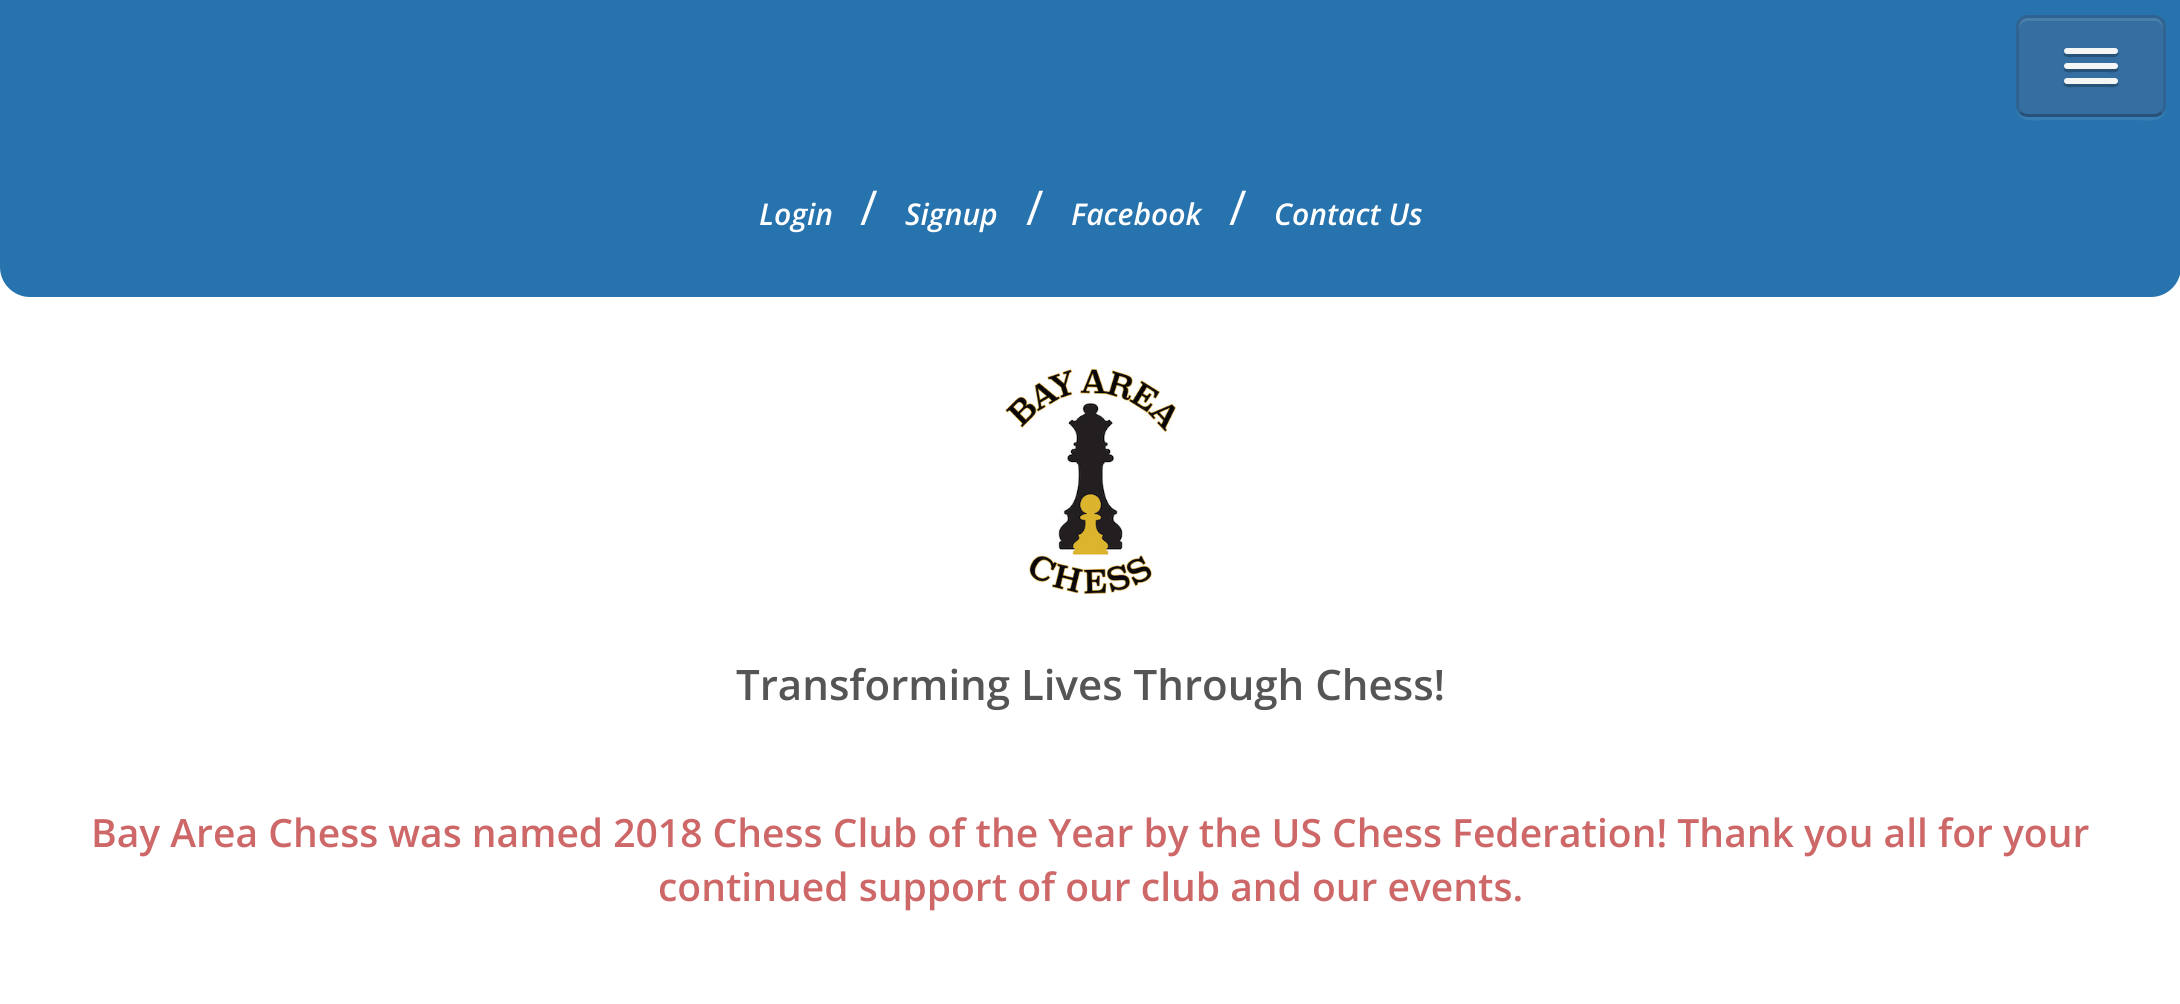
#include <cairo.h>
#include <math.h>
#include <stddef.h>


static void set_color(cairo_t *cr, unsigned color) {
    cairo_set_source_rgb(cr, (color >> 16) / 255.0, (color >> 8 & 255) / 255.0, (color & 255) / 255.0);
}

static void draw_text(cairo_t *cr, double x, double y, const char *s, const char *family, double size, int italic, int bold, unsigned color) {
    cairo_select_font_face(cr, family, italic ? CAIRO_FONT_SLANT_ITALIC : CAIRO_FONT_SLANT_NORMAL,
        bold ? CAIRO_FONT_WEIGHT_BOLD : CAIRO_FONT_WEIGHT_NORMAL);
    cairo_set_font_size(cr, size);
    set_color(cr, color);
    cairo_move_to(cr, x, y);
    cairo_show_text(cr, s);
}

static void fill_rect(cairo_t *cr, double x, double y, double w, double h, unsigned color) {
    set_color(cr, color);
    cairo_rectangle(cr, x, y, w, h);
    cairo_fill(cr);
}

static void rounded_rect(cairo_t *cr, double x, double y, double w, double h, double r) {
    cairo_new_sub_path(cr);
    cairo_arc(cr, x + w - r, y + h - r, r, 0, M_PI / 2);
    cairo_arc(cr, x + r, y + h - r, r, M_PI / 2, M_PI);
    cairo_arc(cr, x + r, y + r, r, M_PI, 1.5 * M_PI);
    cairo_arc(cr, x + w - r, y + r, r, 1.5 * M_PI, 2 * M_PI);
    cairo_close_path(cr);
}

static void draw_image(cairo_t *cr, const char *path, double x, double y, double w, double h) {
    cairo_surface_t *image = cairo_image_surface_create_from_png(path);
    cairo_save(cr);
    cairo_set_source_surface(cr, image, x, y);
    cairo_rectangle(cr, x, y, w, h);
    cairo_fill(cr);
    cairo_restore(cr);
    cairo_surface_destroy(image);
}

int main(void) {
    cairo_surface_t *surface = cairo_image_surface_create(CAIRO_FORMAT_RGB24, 2180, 1004);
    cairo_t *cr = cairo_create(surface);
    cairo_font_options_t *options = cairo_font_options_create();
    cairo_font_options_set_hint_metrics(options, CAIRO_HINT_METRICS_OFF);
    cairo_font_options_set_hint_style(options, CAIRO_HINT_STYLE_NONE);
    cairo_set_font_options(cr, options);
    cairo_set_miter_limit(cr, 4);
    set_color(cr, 0xFFFFFF);
    cairo_paint(cr);
    fill_rect(cr, 0, 0, 2180, 120, 0x2773AE);
    cairo_new_path(cr);
    cairo_move_to(cr, 0, 120);
    cairo_line_to(cr, 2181, 120);
    cairo_line_to(cr, 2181, 267);
    cairo_curve_to(cr, 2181, 283.5, 2167.5, 297, 2151, 297);
    cairo_line_to(cr, 30, 297);
    cairo_curve_to(cr, 13.5, 297, 0, 283.5, 0, 267);
    cairo_close_path(cr);
    cairo_fill(cr);
    draw_text(cr, 759, 225, "Login", "Open Sans SemiBold", 30, 1, 0, 0xFFFFFF);
    draw_text(cr, 860, 225, "/", "Open Sans", 48, 0, 0, 0xFFFFFF);
    draw_text(cr, 905, 225, "Signup", "Open Sans SemiBold", 30, 1, 0, 0xFFFFFF);
    draw_text(cr, 1026, 225, "/", "Open Sans", 48, 0, 0, 0xFFFFFF);
    draw_text(cr, 1071, 225, "Facebook", "Open Sans SemiBold", 30, 1, 0, 0xFFFFFF);
    draw_text(cr, 1229, 225, "/", "Open Sans", 48, 0, 0, 0xFFFFFF);
    draw_text(cr, 1274, 225, "Contact Us", "Open Sans SemiBold", 30, 1, 0, 0xFFFFFF);
    set_color(cr, 0x377EB4);
    cairo_new_path(cr);
    cairo_move_to(cr, 2016, 105);
    cairo_curve_to(cr, 2016, 125, 2034, 120, 2049, 120);
    cairo_line_to(cr, 2133, 120);
    cairo_curve_to(cr, 2148, 120, 2166, 125, 2166, 105);
    cairo_curve_to(cr, 2166, 112, 2161, 117, 2154, 117);
    cairo_line_to(cr, 2028, 117);
    cairo_curve_to(cr, 2021, 117, 2016, 112, 2016, 105);
    cairo_close_path(cr);
    cairo_fill(cr);
    set_color(cr, 0x356EA1);
    rounded_rect(cr, 2016, 15, 150, 102, 12);
    cairo_fill(cr);
    set_color(cr, 0x497DAA);
    cairo_new_path(cr);
    cairo_move_to(cr, 2028, 21);
    cairo_line_to(cr, 2154, 21);
    cairo_curve_to(cr, 2159, 21, 2163, 25, 2163, 30);
    cairo_line_to(cr, 2163, 27);
    cairo_curve_to(cr, 2163, 22, 2159, 18, 2154, 18);
    cairo_line_to(cr, 2028, 18);
    cairo_curve_to(cr, 2023, 18, 2019, 22, 2019, 27);
    cairo_line_to(cr, 2019, 30);
    cairo_curve_to(cr, 2019, 25, 2023, 21, 2028, 21);
    cairo_close_path(cr);
    cairo_fill(cr);
    cairo_new_path(cr);
    cairo_move_to(cr, 2161.5, 112.5);
    cairo_curve_to(cr, 2159.5, 114.5, 2157, 115.5, 2154, 115.5);
    cairo_line_to(cr, 2028, 115.5);
    cairo_curve_to(cr, 2025, 115.5, 2022.5, 114.5, 2020.5, 112.5);
    cairo_set_source_rgba(cr, 0, 0, 0, 0.25);
    cairo_set_line_width(cr, 3);
    cairo_stroke(cr);
    cairo_new_path(cr);
    cairo_move_to(cr, 2020.5, 112.5);
    cairo_curve_to(cr, 2018.5, 110.5, 2017.5, 108, 2017.5, 105);
    cairo_line_to(cr, 2017.5, 27);
    cairo_curve_to(cr, 2017.5, 24, 2018.5, 21.5, 2020.5, 19.5);
    cairo_curve_to(cr, 2022.5, 17.5, 2025, 16.5, 2028, 16.5);
    cairo_line_to(cr, 2154, 16.5);
    cairo_curve_to(cr, 2157, 16.5, 2159.5, 17.5, 2161.5, 19.5);
    cairo_curve_to(cr, 2163.5, 21.5, 2164.5, 24, 2164.5, 27);
    cairo_line_to(cr, 2164.5, 105);
    cairo_curve_to(cr, 2164.5, 108, 2163.5, 110.5, 2161.5, 112.5);
    cairo_set_source_rgba(cr, 0, 0, 0, 0.1);
    cairo_stroke(cr);
    set_color(cr, 0x285379);
    cairo_new_path(cr);
    cairo_move_to(cr, 2064, 52);
    cairo_curve_to(cr, 2061, 59, 2075, 57, 2075, 57);
    cairo_line_to(cr, 2107, 57);
    cairo_curve_to(cr, 2107, 57, 2121, 59, 2118, 52);
    cairo_curve_to(cr, 2117, 53, 2116, 54, 2115, 54);
    cairo_line_to(cr, 2067, 54);
    cairo_curve_to(cr, 2066, 54, 2065, 53, 2064, 52);
    cairo_close_path(cr);
    cairo_fill(cr);
    set_color(cr, 0xF5F5F5);
    rounded_rect(cr, 2064, 48, 54, 6, 3);
    cairo_fill(cr);
    set_color(cr, 0x285379);
    cairo_new_path(cr);
    cairo_move_to(cr, 2064, 68);
    cairo_curve_to(cr, 2061, 74, 2075, 72, 2075, 72);
    cairo_line_to(cr, 2107, 72);
    cairo_curve_to(cr, 2107, 72, 2121, 74, 2118, 68);
    cairo_curve_to(cr, 2117, 68, 2116, 69, 2115, 69);
    cairo_line_to(cr, 2067, 69);
    cairo_curve_to(cr, 2066, 69, 2065, 68, 2064, 68);
    cairo_close_path(cr);
    cairo_fill(cr);
    set_color(cr, 0xF5F5F5);
    rounded_rect(cr, 2064, 63, 54, 6, 3);
    cairo_fill(cr);
    set_color(cr, 0x285379);
    cairo_new_path(cr);
    cairo_move_to(cr, 2064, 82);
    cairo_curve_to(cr, 2061, 89, 2075, 87, 2075, 87);
    cairo_line_to(cr, 2107, 87);
    cairo_curve_to(cr, 2107, 87, 2121, 89, 2118, 82);
    cairo_curve_to(cr, 2117, 83, 2116, 84, 2115, 84);
    cairo_line_to(cr, 2067, 84);
    cairo_curve_to(cr, 2066, 84, 2065, 83, 2064, 82);
    cairo_close_path(cr);
    cairo_fill(cr);
    set_color(cr, 0xF5F5F5);
    rounded_rect(cr, 2064, 78, 54, 6, 3);
    cairo_fill(cr);
    draw_image(cr, "assets/img1.png", 1005, 369, 171, 225);
    draw_text(cr, 736, 700, "Transforming Lives Through Chess!", "Open Sans SemiBold", 42, 0, 0, 0x555555);
    draw_text(cr, 91, 847, "Bay Area Chess was named 2018 Chess Club of the Year by the US Chess Federation! Thank you all for your", "Open Sans SemiBold", 39, 0, 0, 0xCE6868);
    draw_text(cr, 658, 901, "continued support of our club and our events.", "Open Sans SemiBold", 39, 0, 0, 0xCE6868);
    cairo_surface_write_to_png(surface, "output.png");
    cairo_font_options_destroy(options);
    cairo_destroy(cr);
    cairo_surface_destroy(surface);
    return 0;
}
